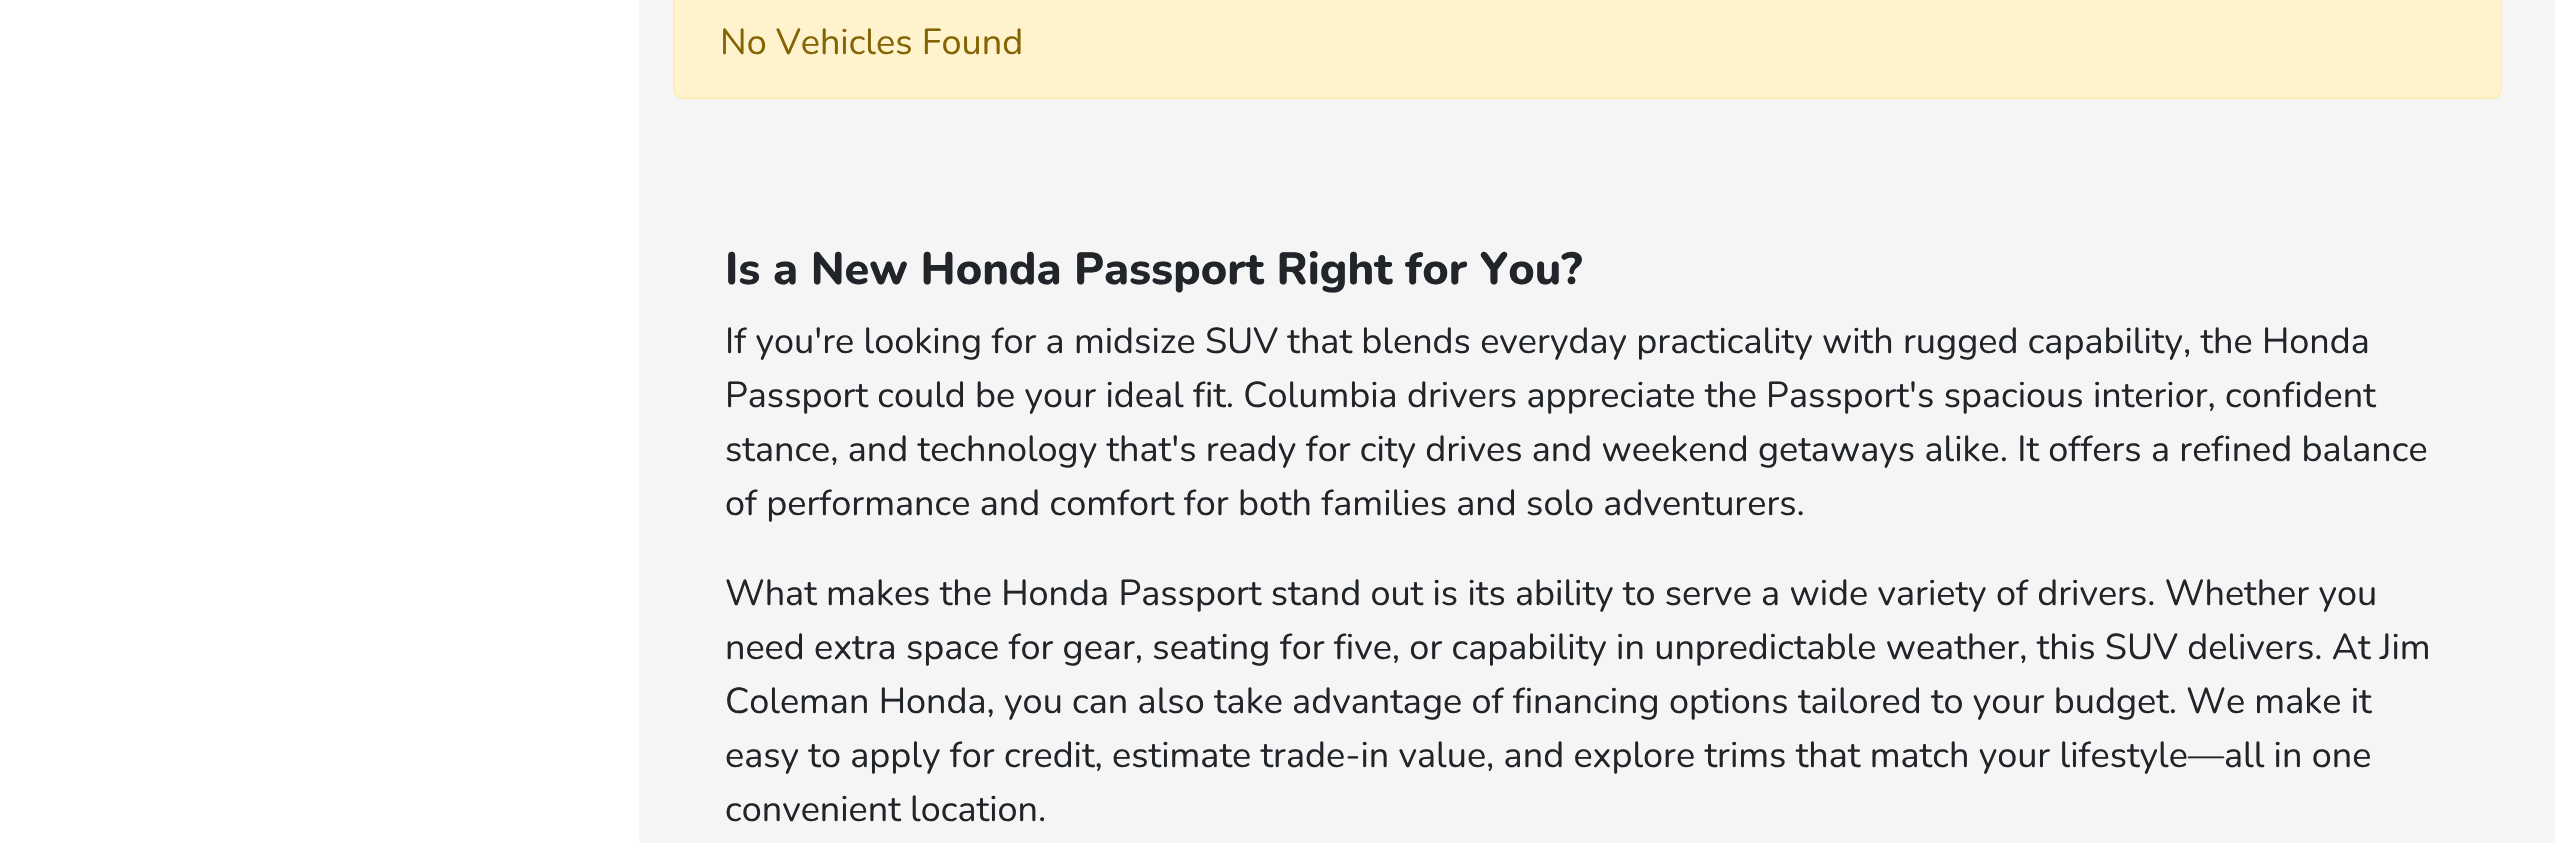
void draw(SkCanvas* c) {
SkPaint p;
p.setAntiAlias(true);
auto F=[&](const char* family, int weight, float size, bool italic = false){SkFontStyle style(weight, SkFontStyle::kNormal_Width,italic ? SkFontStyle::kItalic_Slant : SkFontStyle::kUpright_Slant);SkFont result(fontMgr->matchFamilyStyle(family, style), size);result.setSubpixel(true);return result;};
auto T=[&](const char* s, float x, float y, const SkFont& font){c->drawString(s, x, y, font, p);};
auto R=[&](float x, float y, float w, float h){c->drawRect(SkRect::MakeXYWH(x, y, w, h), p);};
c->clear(0xfff5f5f5);
p.setColor(0xffffffff);
R(0,0,639,843);
p.setColor(0xfffff3cd);
c->drawRoundRect(SkRect::MakeXYWH(674,-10,1827,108),8,8,p);
p.setStroke(true);
p.setStrokeWidth(2);
p.setColor(0xffffeeba);
c->drawRoundRect(SkRect::MakeXYWH(674,-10,1827,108),8,8,p);
auto f1 = F("Nunito",400,36);
p.setStroke(false);
p.setColor(0xff856404);
T("No Vehicles Found",720,54,f1);
auto f2 = F("Nunito",800,45);
p.setColor(0xff212529);
T("Is a New Honda Passport Right for You?",725,284,f2);
T("If you're looking for a midsize SUV that blends everyday practicality with rugged capability, the Honda",725,353,f1);
T("Passport could be your ideal fit. Columbia drivers appreciate the Passport's spacious interior, confident",725,407,f1);
T("stance, and technology that's ready for city drives and weekend getaways alike. It offers a refined balance",725,461,f1);
T("of performance and comfort for both families and solo adventurers.",725,515,f1);
T("What makes the Honda Passport stand out is its ability to serve a wide variety of drivers. Whether you",725,605,f1);
T("need extra space for gear, seating for five, or capability in unpredictable weather, this SUV delivers. At Jim",725,659,f1);
T("Coleman Honda, you can also take advantage of financing options tailored to your budget. We make it",725,713,f1);
T("easy to apply for credit, estimate trade-in value, and explore trims that match your lifestyle—all in one",725,767,f1);
T("convenient location.",725,821,f1);
}
